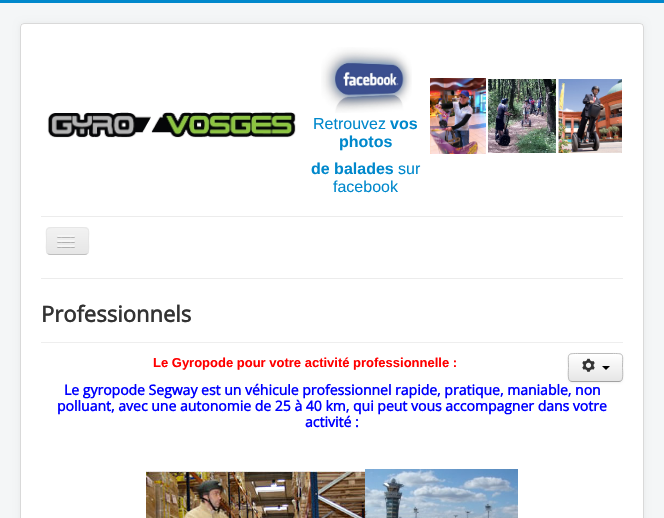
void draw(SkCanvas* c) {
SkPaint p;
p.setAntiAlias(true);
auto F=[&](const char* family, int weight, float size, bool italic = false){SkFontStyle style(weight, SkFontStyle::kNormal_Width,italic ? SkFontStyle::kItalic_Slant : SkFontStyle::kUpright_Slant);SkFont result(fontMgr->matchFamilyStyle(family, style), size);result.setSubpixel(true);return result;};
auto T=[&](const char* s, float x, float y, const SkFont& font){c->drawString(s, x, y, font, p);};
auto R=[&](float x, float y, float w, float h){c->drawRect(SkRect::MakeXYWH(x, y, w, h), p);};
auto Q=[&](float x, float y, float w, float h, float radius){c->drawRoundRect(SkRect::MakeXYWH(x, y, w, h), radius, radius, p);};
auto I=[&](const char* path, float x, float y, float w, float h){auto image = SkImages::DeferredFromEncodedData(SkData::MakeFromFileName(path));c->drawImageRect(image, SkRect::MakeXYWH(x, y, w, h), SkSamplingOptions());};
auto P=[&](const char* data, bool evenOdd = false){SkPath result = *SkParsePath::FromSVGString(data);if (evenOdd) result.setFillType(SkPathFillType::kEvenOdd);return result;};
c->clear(0xfff4f6f7);
p.setColor(0xff0088cc);
R(0,0,664,3);
p.setColor(0x0d000000);
p.setMaskFilter(SkMaskFilter::MakeBlur(kNormal_SkBlurStyle, 3));
c->drawRoundRect(SkRect::MakeXYWH(20,23,624,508),4,4,p);
p.setMaskFilter(nullptr);
p.setColor(0xffffffff);
Q(20,23,624,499,4);
p.setStroke(true);
p.setStrokeWidth(1);
p.setColor(0x26000000);
c->drawRoundRect(SkRect::MakeXYWH(20.5,23.5,623,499),3.5,3.5,p);
I("1.png",47,112,249,26);
I("2.png",321,47,91,66);
auto f1 = F("Liberation Sans",400,16);
p.setStroke(false);
p.setColor(0xff0088cc);
T("Retrouvez",313,129,f1);
auto f2 = F("Liberation Sans",700,16);
T("vos",390,129,f2);
T("photos",339,147,f2);
T("de balades",311,174,f2);
T("sur",398,174,f1);
T("facebook",333,192,f1);
I("3.png",430,78,56,76);
I("4.png",488,79,68,74);
I("5.png",558,79,64,74);
p.setColor(0xffececec);
R(41,216,582,1);
R(41,278,582,1);
p.setColor(0xffededed);
Q(46,227,43,28,4);
c->save();
c->clipPath(P("M50 227h35c2 0 4 2 4 4v20c0 2-2 4-4 4h-35c-2 0-4-2-4-4v-20c0-2 2-4 4-4z"),true);
{
const SkColor colors[] = {0xfff2f2f2,0xffe6e6e6};
const float stops[] = {0,1};
const SkPoint ends[] = {{68,228}, {68,254}};
p.setShader(SkGradientShader::MakeLinear(ends, colors, stops, 2, SkTileMode::kClamp));
p.setAlpha(255);
}
R(46,228,43,26);
c->restore();
p.setStroke(true);
p.setShader(nullptr);
p.setColor(0xffbfbfbf);
c->drawPath(P("M87.5 253.5c-.5 .5-1.5 1-2.5 1h-35c-1 0-2-.5-2.5-1"),p);
p.setColor(0xffe6e6e6);
c->drawPath(P("M47.5 253.5c-2-2.5-1-10-1-12.5c0-12-2.5-13.5 9.5-13.5h23c12 0 9.5 1.5 9.5 13.5c0 2.5 1 10-1 12.5"),p);
p.setStroke(false);
p.setColor(0xffb3b3b3);
c->drawPath(P("M57 236.5c-1 2 3.5 1.5 3.5 1.5h11c0 0 4.5 .5 3.5-1.5c-1 1-7.5 .5-9 .5c-1.5 0-8 .5-9-.5z"),p);
p.setColor(0xfff5f5f5);
Q(57,235,18,2,1);
p.setColor(0xffb0b0b0);
c->drawPath(P("M57 241.5c-1 2 3.5 1.5 3.5 1.5h11c0 0 4.5 .5 3.5-1.5c-1 1-7.5 .5-9 .5c-1.5 0-8 .5-9-.5z"),p);
p.setColor(0xfff5f5f5);
Q(57,240,18,2,1);
p.setColor(0xffafafaf);
c->drawPath(P("M57 246.5c-1 2 3.5 1.5 3.5 1.5h11c0 0 4.5 .5 3.5-1.5c-1 1-7.5 .5-9 .5c-1.5 0-8 .5-9-.5z"),p);
p.setColor(0xfff5f5f5);
Q(57,245,18,2,1);
p.setColor(0xffeeeeee);
R(41,342,582,1);
auto f3 = F("Open Sans",700,22);
p.setColor(0xff333333);
T("Professionnels",41,322,f3);
p.setColor(0x0d000000);
p.setMaskFilter(SkMaskFilter::MakeBlur(kNormal_SkBlurStyle, 1));
c->drawRoundRect(SkRect::MakeXYWH(568,354,55,29),4,4,p);
p.setMaskFilter(nullptr);
p.setColor(0xfff5f5f5);
Q(568,353,55,29,4);
c->save();
c->clipPath(P("M572 353h47c2 0 4 2 4 4v21c0 2-2 4-4 4h-47c-2 0-4-2-4-4v-21c0-2 2-4 4-4z"),true);
{
const SkColor colors[] = {0xffffffff,0xffe6e6e6};
const float stops[] = {0,1};
const SkPoint ends[] = {{596,354}, {596,381}};
p.setShader(SkGradientShader::MakeLinear(ends, colors, stops, 2, SkTileMode::kClamp));
p.setAlpha(255);
}
R(568,354,55,27);
c->restore();
p.setShader(nullptr);
p.setColor(0xffffffff);
c->drawPath(P("M572 355h47c2 0 3 1 3 3c0-6-6-4-11-4h-31c-5 0-11-2-11 4c0-2 1-3 3-3z"),p);
p.setStroke(true);
p.setColor(0xffa2a2a2);
c->drawPath(P("M621.5 380.5c-.5 .5-1.5 1-2.5 1h-47c-1 0-2-.5-2.5-1"),p);
p.setColor(0xffbbbbbb);
c->drawPath(P("M569.5 380.5c-2-2-1-10.5-1-13c0-14.5-2.5-14 11.5-14h31c14 0 11.5-.5 11.5 14c0 2.5 1 11-1 13"),p);
I("6.png",582,358,13,14);
p.setStroke(false);
p.setColor(0xff000000);
c->drawPath(P("M602 366h8l-4 4z"),p);
auto f4 = F("Liberation Sans",700,13);
p.setColor(0xffff0000);
T("Le Gyropode pour votre activité professionnelle :",153,367,f4);
auto f5 = F("Open Sans",700,14);
p.setColor(0xff0000ff);
T("Le gyropode Segway est un véhicule professionnel rapide, pratique, maniable, non",64,395,f5);
T("polluant, avec une autonomie de 25 à 40 km, qui peut vous accompagner dans votre",57,411,f5);
T("activité :",305,427,f5);
I("7.png",146,471,219,47);
I("8.png",365,469,153,49);
}
